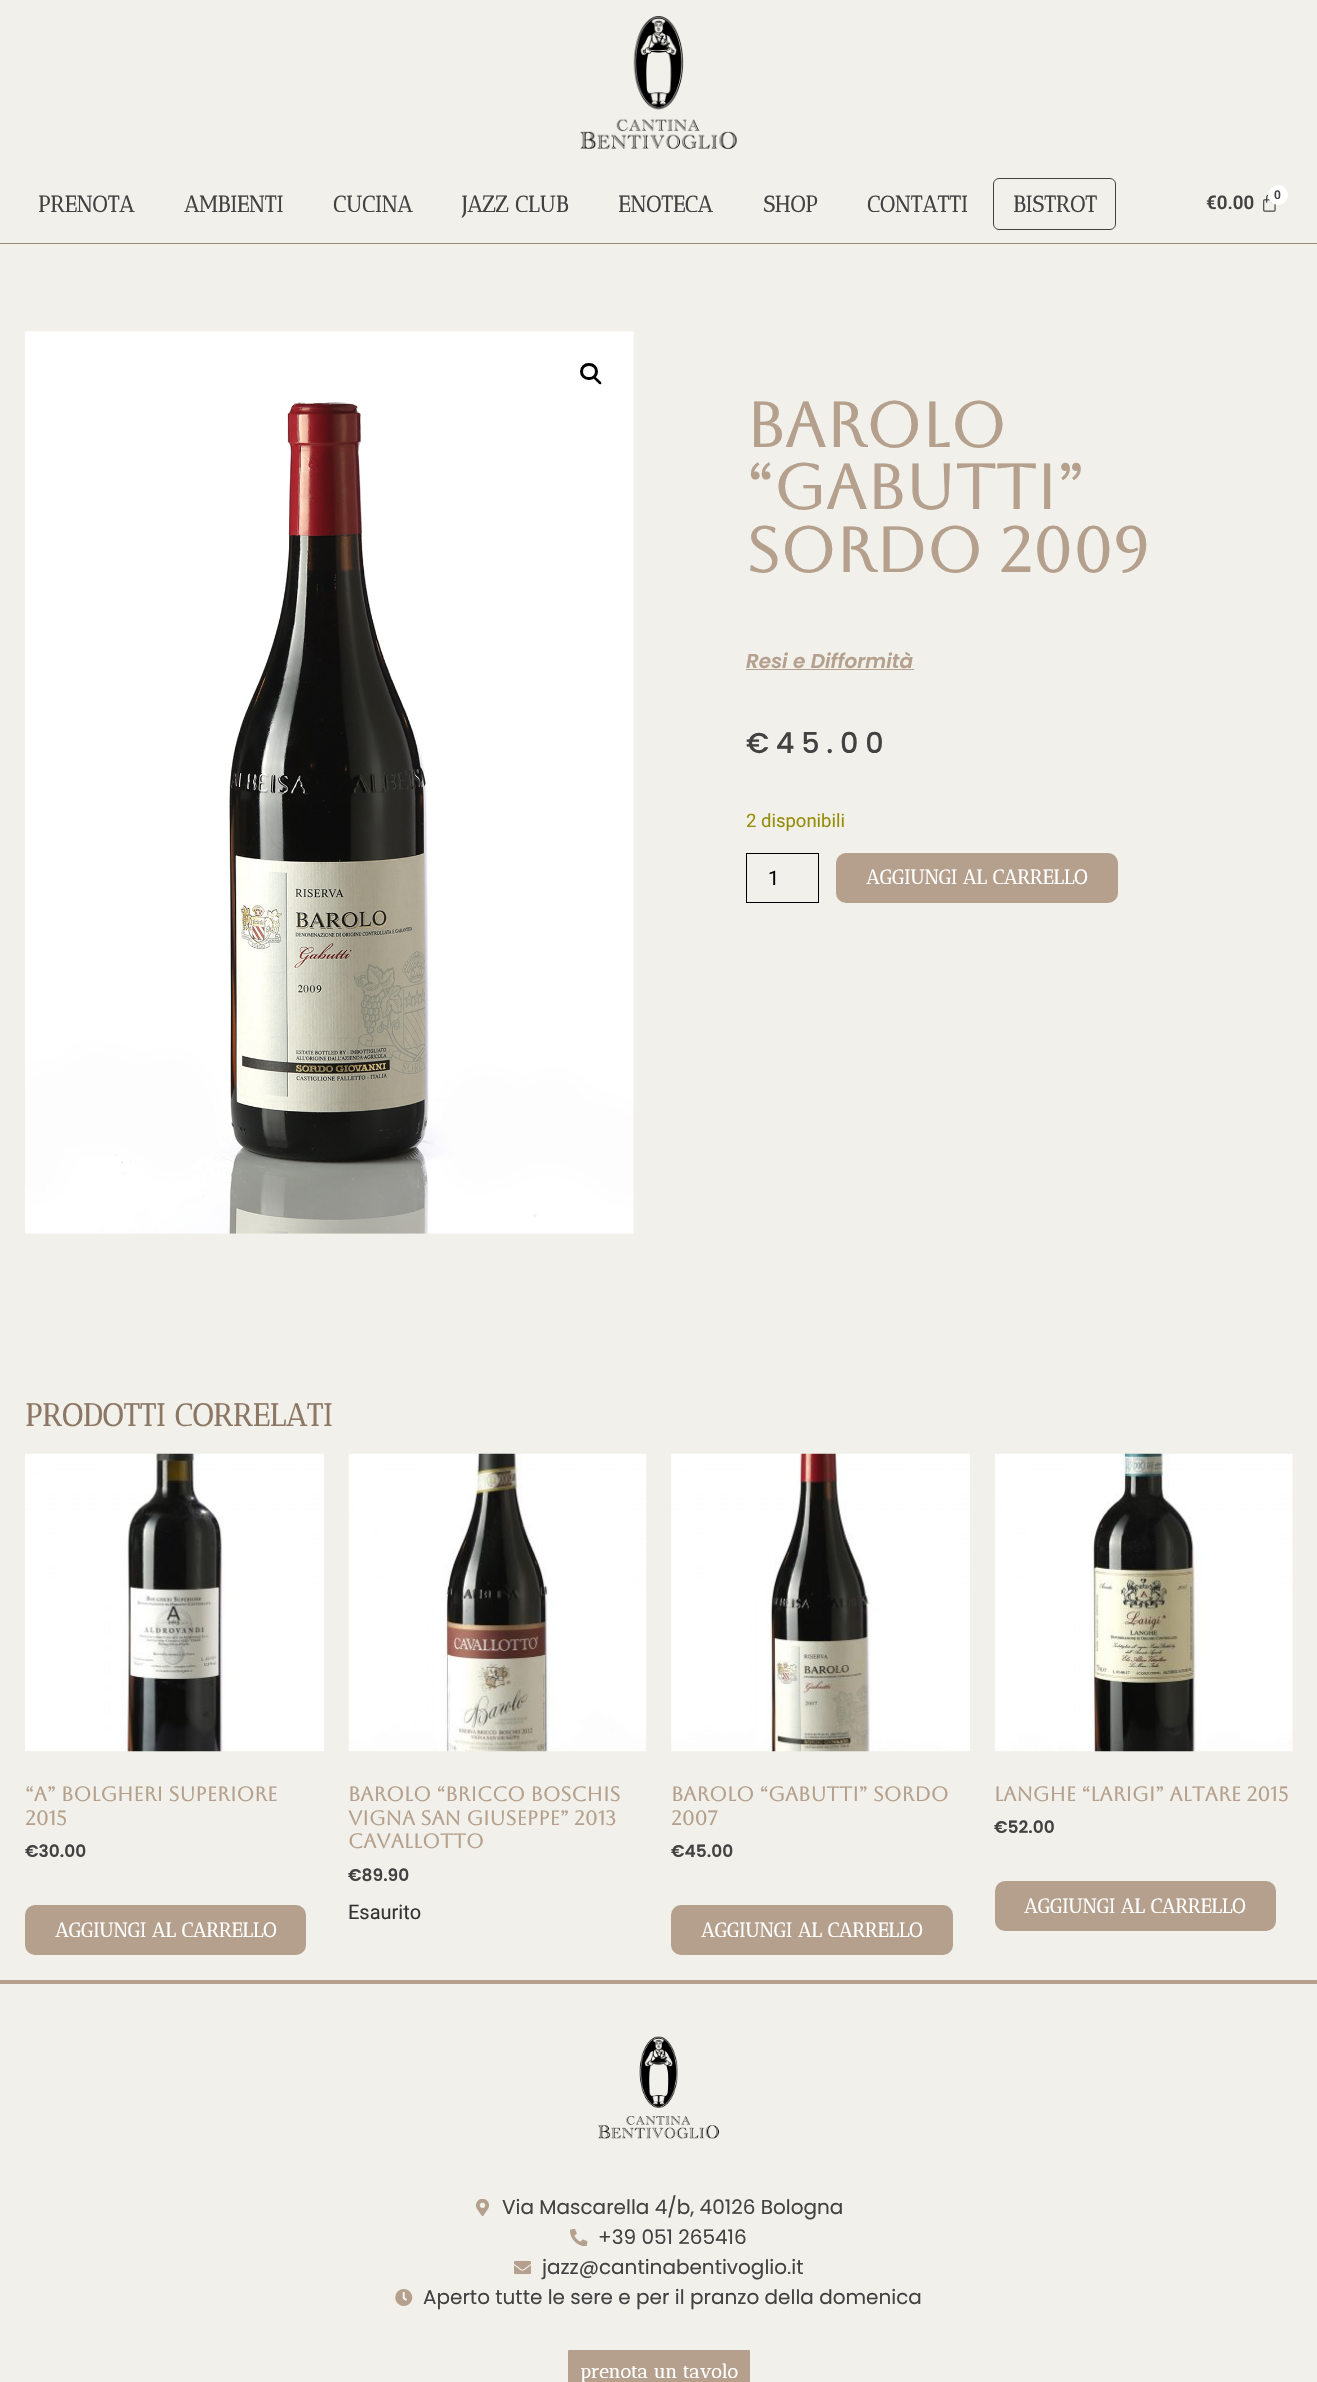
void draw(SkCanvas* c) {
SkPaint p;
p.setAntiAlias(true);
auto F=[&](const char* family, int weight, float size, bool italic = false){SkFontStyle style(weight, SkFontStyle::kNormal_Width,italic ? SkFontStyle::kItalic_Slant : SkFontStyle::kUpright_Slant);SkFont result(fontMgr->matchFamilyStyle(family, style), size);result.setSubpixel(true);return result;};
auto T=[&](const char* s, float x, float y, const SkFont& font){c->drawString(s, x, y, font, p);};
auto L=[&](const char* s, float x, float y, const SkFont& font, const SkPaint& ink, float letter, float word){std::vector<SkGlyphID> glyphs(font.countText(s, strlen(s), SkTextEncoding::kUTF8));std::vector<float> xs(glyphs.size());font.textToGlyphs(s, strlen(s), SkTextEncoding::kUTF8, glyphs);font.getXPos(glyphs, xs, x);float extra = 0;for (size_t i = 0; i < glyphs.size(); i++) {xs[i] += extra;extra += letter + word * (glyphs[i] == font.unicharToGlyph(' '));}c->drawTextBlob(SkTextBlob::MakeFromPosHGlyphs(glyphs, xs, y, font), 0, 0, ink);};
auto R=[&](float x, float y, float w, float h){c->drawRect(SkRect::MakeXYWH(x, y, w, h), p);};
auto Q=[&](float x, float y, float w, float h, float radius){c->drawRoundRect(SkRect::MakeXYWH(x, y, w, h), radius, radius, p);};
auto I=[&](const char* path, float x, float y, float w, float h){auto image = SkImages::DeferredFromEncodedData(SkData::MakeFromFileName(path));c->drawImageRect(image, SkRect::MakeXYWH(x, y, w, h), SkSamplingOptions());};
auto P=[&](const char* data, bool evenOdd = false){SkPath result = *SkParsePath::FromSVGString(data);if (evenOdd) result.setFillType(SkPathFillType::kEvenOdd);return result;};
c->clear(0xfff1f0ea);
I("1.png",580,16,157,133);
p.setColor(0xff988572);
R(0,243,1317,1);
auto f1 = F("Antic Didone",700,22.5);
p.setColor(0xff424242);
T("PRENOTA",38,212,f1);
T("AMBIENTI",184,212,f1);
T("CUCINA",333,212,f1);
T("JAZZ CLUB",462,212,f1);
T("ENOTECA",618,212,f1);
T("SHOP",763,212,f1);
T("CONTATTI",867,212,f1);
p.setStroke(true);
p.setStrokeWidth(1);
c->drawRoundRect(SkRect::MakeXYWH(993.5,178.5,122,51),5.5,5.5,p);
p.setStroke(false);
T("BISTROT",1013,212,f1);
auto f2 = F("Roboto",600,18.75);
T("€0.00",1206,209,f2);
I("2.png",1263,194,13,18);
p.setColor(0xffffffff);
c->drawCircle(1278,195,10,p);
auto f3 = F("Roboto",600,12);
p.setColor(0xff424242);
T("0",1274,199,f3);
I("3.png",25,331,609,903);
p.setStroke(true);
p.setStrokeWidth(3);
p.setColor(0xff000000);
c->drawRoundRect(SkRect::MakeXYWH(581.5,364.5,15,14),7,7,p);
p.setStroke(false);
c->drawPath(P("M594 377c1.5-1.5 3.5 2 4.5 2.5c.5 1 4 3 2.5 4.5c-1.5 1.5-3.5-2-4.5-2.5c-.5-1-4-3-2.5-4.5z"),p);
auto f4 = F("Aboreto",700,62.5);
p.setColor(0xffb4a08c);
T("BAROLO",746,447,f4);
T("“GABUTTI”",746,509,f4);
T("SORDO 2009",746,572,f4);
auto f5 = F("Poppins",600,20,true);
T("Resi e Difformità",746,668,f5);
R(746,669,168,1);
auto f6 = F("Poppins",500,28.75);
p.setColor(0xff424242);
L("€45.00",746,753,f6,p,6.75,0);
auto f7 = F("Roboto",400,18.5);
p.setColor(0xff958e09);
T("2 disponibili",746,827,f7);
p.setStroke(true);
p.setStrokeWidth(1);
p.setColor(0xff000000);
c->drawRect(SkRect::MakeXYWH(746.5,853.5,72,49),p);
auto f8 = F("Roboto",400,20);
p.setStroke(false);
T("1",768,885,f8);
p.setColor(0xffb4a08c);
Q(836,853,282,50,10);
auto f9 = F("Antic Didone",700,20);
p.setColor(0xffffffff);
T("AGGIUNGI AL CARRELLO",866,884,f9);
auto f10 = F("Antic Didone",700,31.25);
p.setColor(0xff8c7765);
T("PRODOTTI CORRELATI",25,1426,f10);
I("4.png",25,1453,299,299);
auto f11 = F("Aboreto",700,20);
p.setColor(0xffb4a08c);
T("“A” Bolgheri Superiore",25,1801,f11);
T("2015",25,1825,f11);
auto f12 = F("Poppins",600,17);
p.setColor(0xff424242);
T("€30.00",25,1857,f12);
p.setColor(0xffb4a08c);
Q(25,1905,281,50,10);
p.setColor(0xffffffff);
T("AGGIUNGI AL CARRELLO",55,1937,f9);
I("5.png",348,1453,299,299);
p.setColor(0xffb4a08c);
T("BAROLO “BRICCO BOSCHIS",348,1801,f11);
T("VIGNA SAN GIUSEPPE” 2013",348,1825,f11);
T("CAVALLOTTO",348,1848,f11);
p.setColor(0xff424242);
T("€89.90",348,1881,f12);
p.setColor(0xff333333);
T("Esaurito",348,1919,f8);
I("6.png",671,1453,299,299);
p.setColor(0xffb4a08c);
T("BAROLO “GABUTTI” SORDO",671,1801,f11);
T("2007",671,1825,f11);
p.setColor(0xff424242);
T("€45.00",671,1857,f12);
p.setColor(0xffb4a08c);
Q(671,1905,282,50,10);
p.setColor(0xffffffff);
T("AGGIUNGI AL CARRELLO",701,1937,f9);
I("7.png",995,1453,298,299);
p.setColor(0xffb4a08c);
T("LANGHE “LARIGI” ALTARE 2015",994,1801,f11);
p.setColor(0xff424242);
T("€52.00",994,1833,f12);
p.setColor(0xffb4a08c);
Q(995,1881,281,50,10);
p.setColor(0xffffffff);
T("AGGIUNGI AL CARRELLO",1024,1913,f9);
p.setColor(0xffb4a08c);
R(0,1980,1317,4);
I("8.png",598,2036,121,103);
I("9.png",476,2199,13,17);
auto f13 = F("Poppins",400,20);
p.setColor(0xff424242);
T("Via Mascarella 4/b, 40126 Bologna",502,2214,f13);
I("10.png",570,2229,18,17);
T("+39 051 265416",598,2244,f13);
I("11.png",514,2260,17,15);
T("jazz@cantinabentivoglio.it",542,2274,f13);
I("12.png",395,2289,18,17);
T("Aperto tutte le sere e per il pranzo della domenica",423,2304,f13);
p.setColor(0xffb4a08c);
Q(568,2350,182,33,1);
auto f14 = F("Antic Didone",700,18.75);
p.setColor(0xffffffff);
T("prenota un tavolo",580,2378,f14);
}
